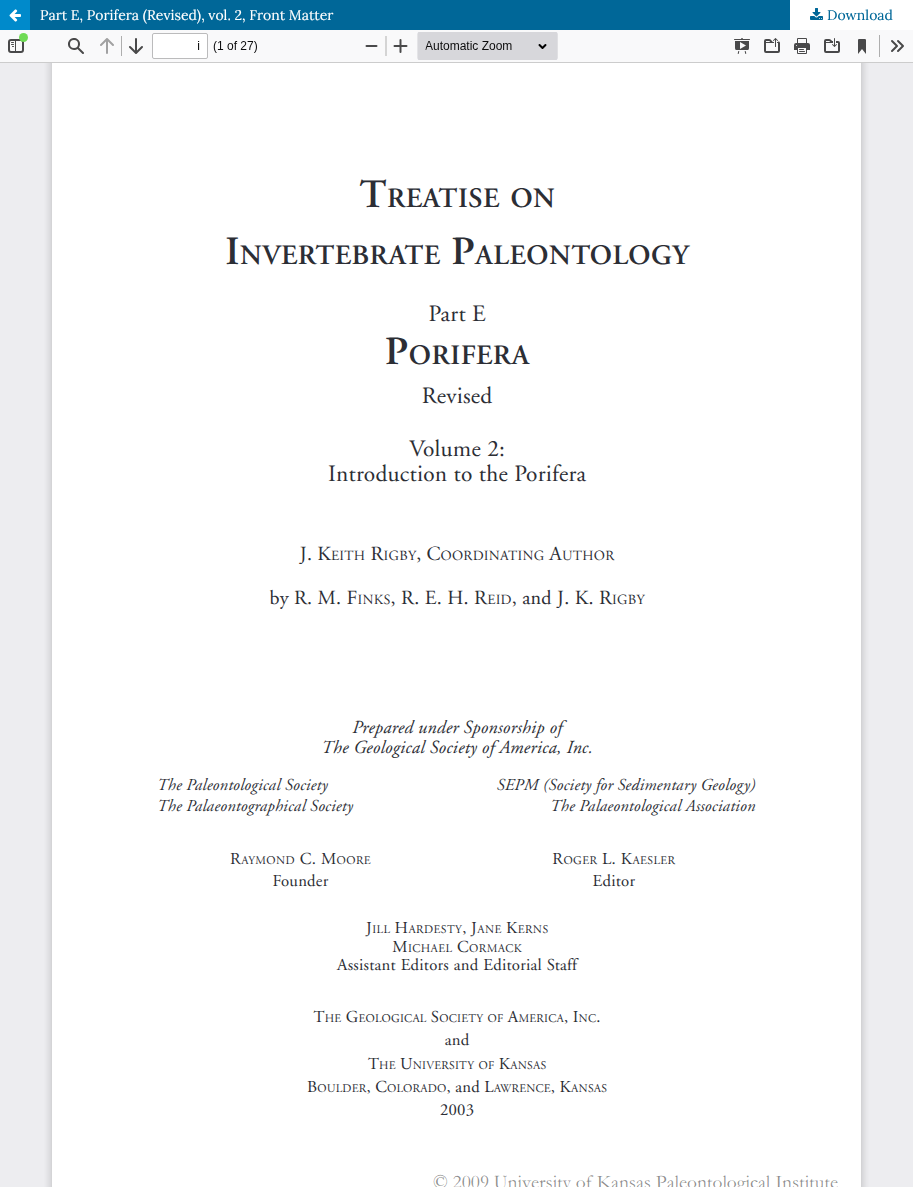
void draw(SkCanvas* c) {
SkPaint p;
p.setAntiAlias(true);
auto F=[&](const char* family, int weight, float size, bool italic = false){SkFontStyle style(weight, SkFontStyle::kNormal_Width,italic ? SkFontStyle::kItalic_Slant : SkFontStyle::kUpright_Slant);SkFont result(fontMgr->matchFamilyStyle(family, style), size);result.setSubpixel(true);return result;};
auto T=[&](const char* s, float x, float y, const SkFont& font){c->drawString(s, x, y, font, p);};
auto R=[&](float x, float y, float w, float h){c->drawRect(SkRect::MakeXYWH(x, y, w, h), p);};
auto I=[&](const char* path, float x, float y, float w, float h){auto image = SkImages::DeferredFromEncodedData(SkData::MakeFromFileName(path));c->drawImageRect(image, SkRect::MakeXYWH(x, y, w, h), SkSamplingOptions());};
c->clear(0xffffffff);
p.setColor(0xff006798);
R(30,0,760,30);
p.setColor(0xff008acb);
R(0,0,30,30);
I("1.png",9,9,12,13);
auto f1 = F("Lora",400,14);
p.setColor(0xffffffff);
T("Part E, Porifera (Revised), vol. 2, Front Matter",40,20,f1);
I("2.png",810,8,13,12);
p.setColor(0xff006798);
T("Download",827,20,f1);
I("3.png",0,30,913,1157);
}
